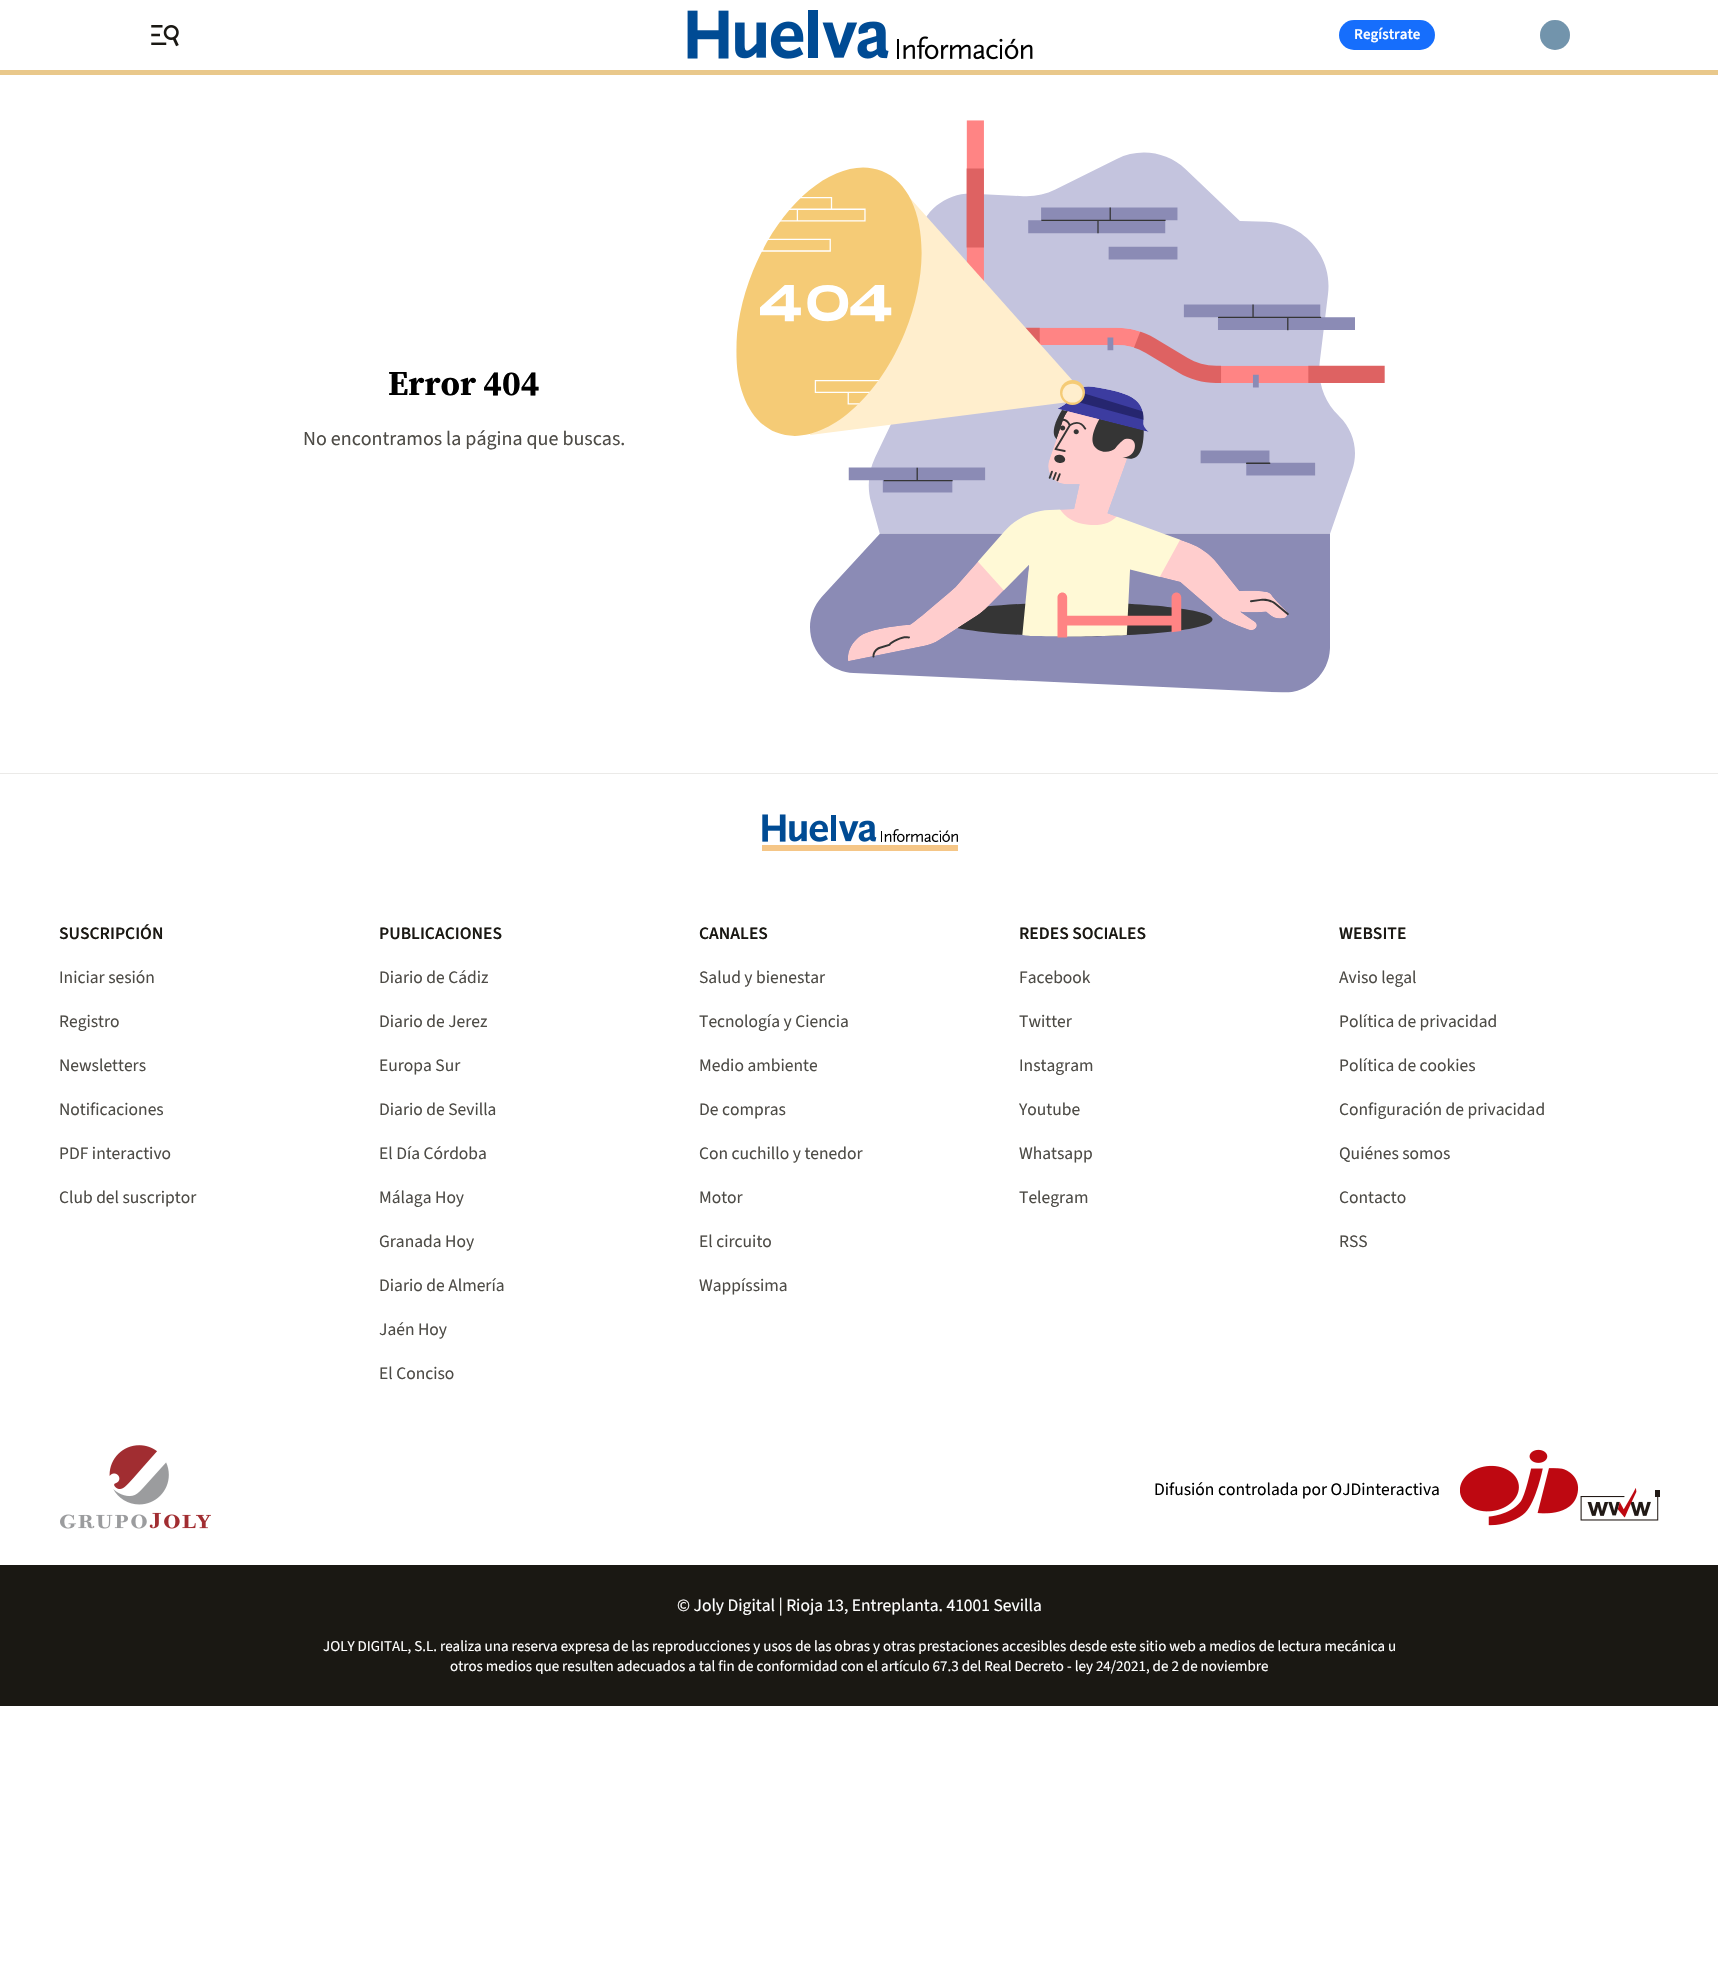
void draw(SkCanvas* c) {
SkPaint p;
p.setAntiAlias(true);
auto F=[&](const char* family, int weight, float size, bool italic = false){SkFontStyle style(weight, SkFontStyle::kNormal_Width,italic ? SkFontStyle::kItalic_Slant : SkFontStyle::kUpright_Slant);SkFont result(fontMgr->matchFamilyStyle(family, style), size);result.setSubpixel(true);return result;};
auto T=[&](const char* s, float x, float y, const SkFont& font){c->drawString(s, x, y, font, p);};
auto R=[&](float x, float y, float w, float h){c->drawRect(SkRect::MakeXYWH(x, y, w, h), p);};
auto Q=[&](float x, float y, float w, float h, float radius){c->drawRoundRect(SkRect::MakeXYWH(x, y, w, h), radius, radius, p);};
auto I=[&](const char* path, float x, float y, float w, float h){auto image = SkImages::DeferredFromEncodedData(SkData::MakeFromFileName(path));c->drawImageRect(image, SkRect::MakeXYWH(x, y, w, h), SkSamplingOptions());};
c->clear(0xffffffff);
I("1.png",151,25,28,22);
I("2.png",687,10,346,50);
p.setColor(0xff166efc);
Q(1339,20,96,30,15);
auto f1 = F("Source Sans 3",600,15);
p.setColor(0xffffffff);
T("Regístrate",1354,39,f1);
p.setColor(0xffa7bccb);
c->drawCircle(1555,35,15,p);
p.setColor(0x6624577c);
c->drawCircle(1555,35,15,p);
p.setColor(0xffe9c88b);
R(0,70,1718,5);
auto f2 = F("Source Serif 4",700,35);
p.setColor(0xff000000);
T("Error 404",388,395,f2);
auto f3 = F("Source Sans 3",400,20);
p.setColor(0xff4d4b46);
T("No encontramos la página que buscas.",303,445,f3);
I("3.png",736,120,649,573);
p.setColor(0xffebeae8);
R(0,773,1718,1);
I("4.png",762,814,196,37);
auto f4 = F("Source Sans 3",600,17.5);
p.setColor(0xff1a1813);
T("SUSCRIPCIÓN",59,939,f4);
auto f5 = F("Source Sans 3",400,17.5);
p.setColor(0xff4d4b46);
T("Iniciar sesión",59,983,f5);
T("Registro",59,1027,f5);
T("Newsletters",59,1071,f5);
T("Notificaciones",59,1115,f5);
T("PDF interactivo",59,1159,f5);
T("Club del suscriptor",59,1203,f5);
p.setColor(0xff1a1813);
T("PUBLICACIONES",379,939,f4);
p.setColor(0xff4d4b46);
T("Diario de Cádiz",379,983,f5);
T("Diario de Jerez",379,1027,f5);
T("Europa Sur",379,1071,f5);
T("Diario de Sevilla",379,1115,f5);
T("El Día Córdoba",379,1159,f5);
T("Málaga Hoy",379,1203,f5);
T("Granada Hoy",379,1247,f5);
T("Diario de Almería",379,1291,f5);
T("Jaén Hoy",379,1335,f5);
T("El Conciso",379,1379,f5);
p.setColor(0xff1a1813);
T("CANALES",699,939,f4);
p.setColor(0xff4d4b46);
T("Salud y bienestar",699,983,f5);
T("Tecnología y Ciencia",699,1027,f5);
T("Medio ambiente",699,1071,f5);
T("De compras",699,1115,f5);
T("Con cuchillo y tenedor",699,1159,f5);
T("Motor",699,1203,f5);
T("El circuito",699,1247,f5);
T("Wappíssima",699,1291,f5);
p.setColor(0xff1a1813);
T("REDES SOCIALES",1019,939,f4);
p.setColor(0xff4d4b46);
T("Facebook",1019,983,f5);
T("Twitter",1019,1027,f5);
T("Instagram",1019,1071,f5);
T("Youtube",1019,1115,f5);
T("Whatsapp",1019,1159,f5);
T("Telegram",1019,1203,f5);
p.setColor(0xff1a1813);
T("WEBSITE",1339,939,f4);
p.setColor(0xff4d4b46);
T("Aviso legal",1339,983,f5);
T("Política de privacidad",1339,1027,f5);
T("Política de cookies",1339,1071,f5);
T("Configuración de privacidad",1339,1115,f5);
T("Quiénes somos",1339,1159,f5);
T("Contacto",1339,1203,f5);
T("RSS",1339,1247,f5);
I("5.png",60,1445,151,84);
p.setColor(0xff000000);
T("Difusión controlada por OJDinteractiva",1154,1495,f5);
I("6.png",1460,1449,200,77);
p.setColor(0xff1a1813);
R(0,1565,1718,141);
p.setColor(0xffffffff);
T("© Joly Digital | Rioja 13, Entreplanta. 41001 Sevilla",677,1611,f5);
auto f6 = F("Source Sans 3",400,15);
T("JOLY DIGITAL, S.L. realiza una reserva expresa de las reproducciones y usos de las obras y otras prestaciones accesibles desde este sitio web a medios de lectura mecánica u",323,1651,f6);
T("otros medios que resulten adecuados a tal fin de conformidad con el artículo 67.3 del Real Decreto - ley 24/2021, de 2 de noviembre",450,1671,f6);
}
